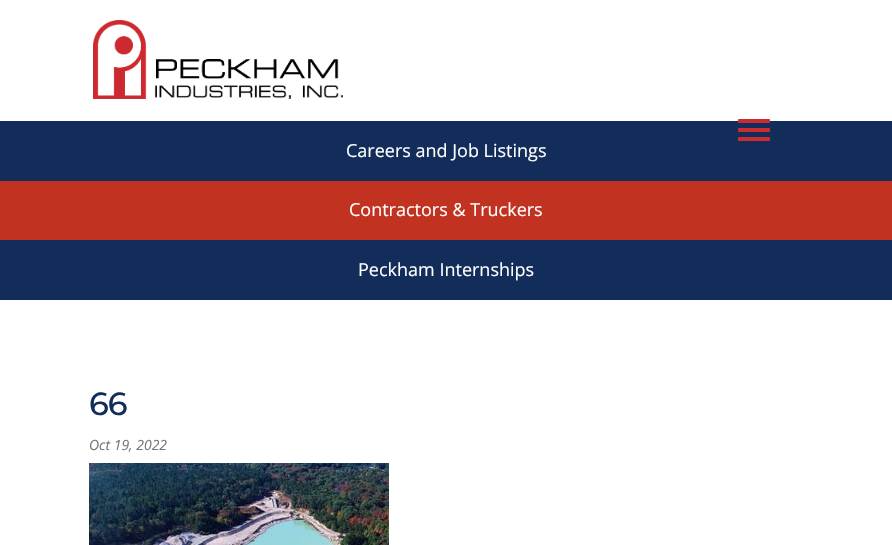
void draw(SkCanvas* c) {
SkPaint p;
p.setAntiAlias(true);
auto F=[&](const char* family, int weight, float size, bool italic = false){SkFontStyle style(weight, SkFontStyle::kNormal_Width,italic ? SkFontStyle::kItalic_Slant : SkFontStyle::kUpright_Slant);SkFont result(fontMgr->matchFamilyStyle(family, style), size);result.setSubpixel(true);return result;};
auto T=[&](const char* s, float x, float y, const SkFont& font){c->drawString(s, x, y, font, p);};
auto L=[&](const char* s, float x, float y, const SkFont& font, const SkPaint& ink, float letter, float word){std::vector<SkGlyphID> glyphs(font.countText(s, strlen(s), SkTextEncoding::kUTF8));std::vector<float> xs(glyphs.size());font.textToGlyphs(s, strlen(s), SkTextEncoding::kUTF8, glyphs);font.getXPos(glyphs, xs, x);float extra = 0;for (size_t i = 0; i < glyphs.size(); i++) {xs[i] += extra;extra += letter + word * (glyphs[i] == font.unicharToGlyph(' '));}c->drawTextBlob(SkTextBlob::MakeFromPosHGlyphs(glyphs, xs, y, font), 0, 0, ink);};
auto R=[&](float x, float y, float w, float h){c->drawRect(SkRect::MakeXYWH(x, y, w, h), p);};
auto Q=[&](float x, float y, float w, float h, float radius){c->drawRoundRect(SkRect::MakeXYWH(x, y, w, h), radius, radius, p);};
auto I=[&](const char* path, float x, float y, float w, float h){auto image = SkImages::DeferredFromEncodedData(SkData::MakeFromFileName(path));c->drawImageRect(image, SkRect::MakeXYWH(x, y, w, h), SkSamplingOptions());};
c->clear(0xffffffff);
I("1.png",93,20,250,79);
p.setColor(0xff132d5a);
R(0,121,892,60);
p.setColor(0xffcb2c30);
Q(738,119,32,4,1);
Q(738,128,32,4,1);
Q(738,137,32,4,1);
auto f1 = F("Open Sans",400,18);
p.setColor(0xffffffff);
T("Careers and Job Listings",346,157,f1);
p.setColor(0xffc23220);
R(0,181,892,59);
p.setColor(0xffffffff);
T("Contractors & Truckers",349,216,f1);
p.setColor(0xff132d5a);
R(0,240,892,60);
p.setColor(0xffffffff);
T("Peckham Internships",358,276,f1);
auto f2 = F("Montserrat",500,32);
p.setColor(0xff122d5a);
L("66",89,415,f2,p,-1,0);
auto f3 = F("Open Sans",400,14,true);
p.setColor(0xff777777);
T("Oct 19, 2022",89,450,f3);
I("2.png",89,463,300,82);
}
